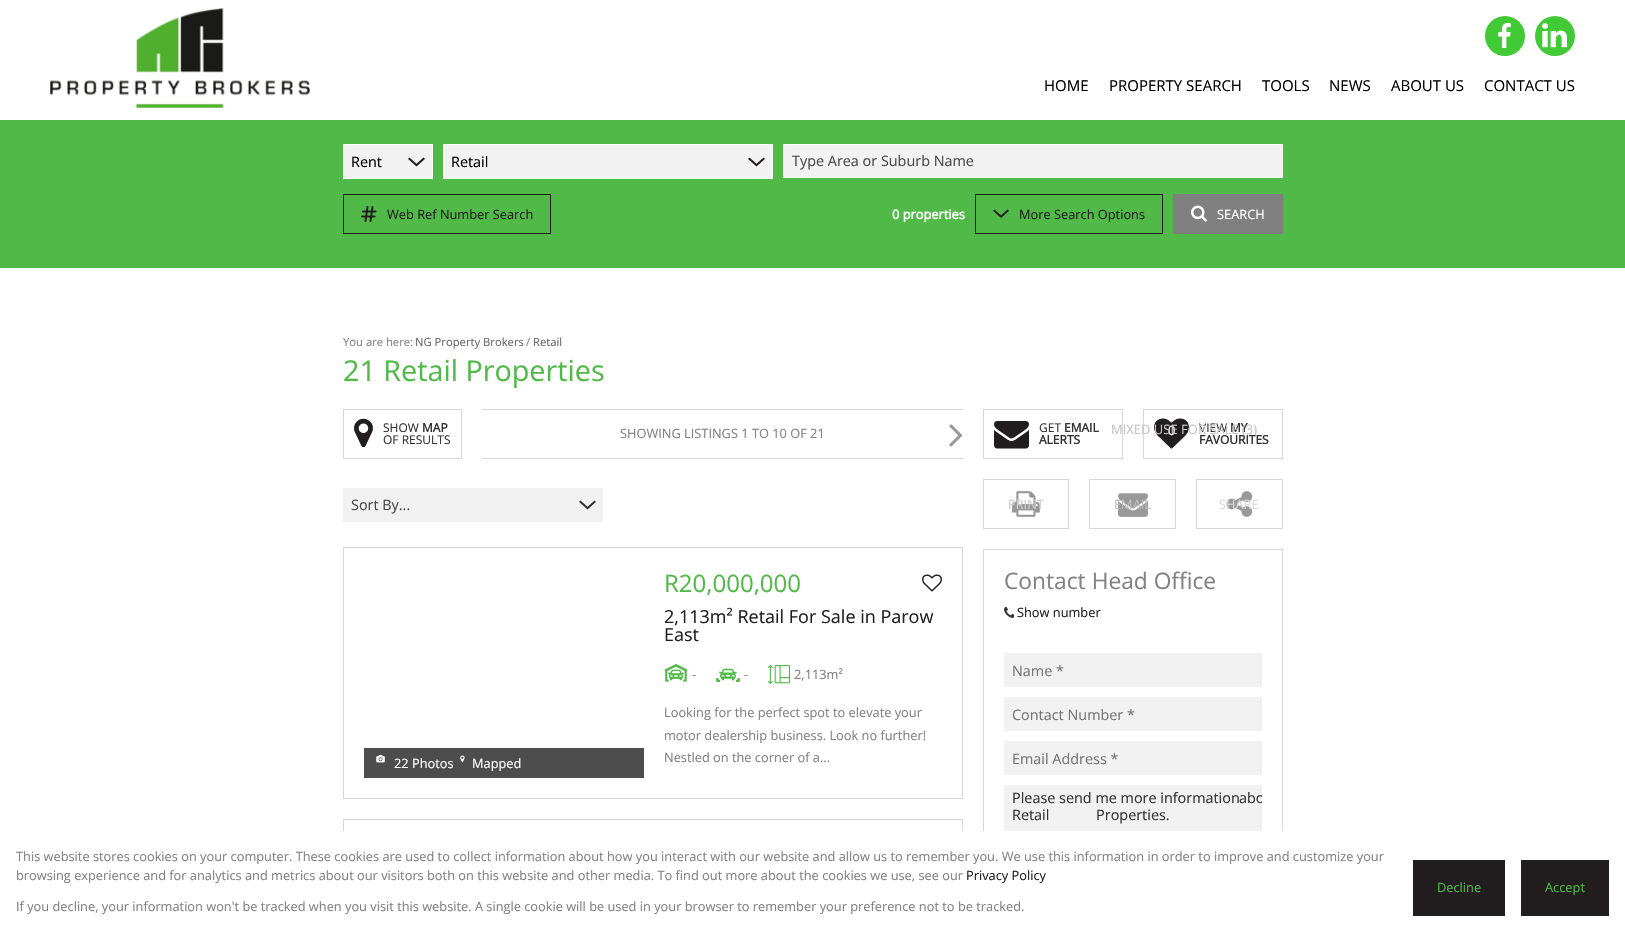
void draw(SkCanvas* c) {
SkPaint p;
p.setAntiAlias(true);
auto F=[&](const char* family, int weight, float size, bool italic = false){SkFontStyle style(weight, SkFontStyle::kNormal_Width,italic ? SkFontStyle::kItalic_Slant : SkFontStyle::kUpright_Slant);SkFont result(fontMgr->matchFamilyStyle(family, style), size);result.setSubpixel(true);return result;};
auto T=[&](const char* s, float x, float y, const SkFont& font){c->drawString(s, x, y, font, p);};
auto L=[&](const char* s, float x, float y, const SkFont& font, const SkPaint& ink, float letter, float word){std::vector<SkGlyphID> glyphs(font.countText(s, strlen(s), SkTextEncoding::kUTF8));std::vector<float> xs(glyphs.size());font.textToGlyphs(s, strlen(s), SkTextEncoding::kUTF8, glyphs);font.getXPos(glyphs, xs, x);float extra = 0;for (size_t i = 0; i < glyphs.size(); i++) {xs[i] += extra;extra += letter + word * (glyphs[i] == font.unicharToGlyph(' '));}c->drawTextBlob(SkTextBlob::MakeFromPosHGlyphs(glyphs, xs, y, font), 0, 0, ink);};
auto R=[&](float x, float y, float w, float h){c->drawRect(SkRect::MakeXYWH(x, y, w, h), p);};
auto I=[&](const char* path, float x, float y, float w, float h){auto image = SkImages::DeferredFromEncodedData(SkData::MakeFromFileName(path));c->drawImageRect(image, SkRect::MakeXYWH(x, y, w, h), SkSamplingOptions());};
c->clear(0xffffffff);
p.setColor(0xff51b948);
R(0,120,1625,148);
p.setColor(0xfff2f2f2);
c->drawRect(SkRect::MakeXYWH(343.5,144.5,89,34),p);
p.setStroke(true);
p.setStrokeWidth(1);
p.setColor(0xffffffff);
c->drawRect(SkRect::MakeXYWH(343.5,144.5,89,34),p);
auto f1 = F("Open Sans",400,14.4);
p.setStroke(false);
p.setColor(0xff000000);
T("Rent",351,167,f1);
I("1.png",408,157,17,10);
p.setColor(0xfff2f2f2);
c->drawRect(SkRect::MakeXYWH(443.5,144.5,329,34),p);
p.setStroke(true);
p.setColor(0xffffffff);
c->drawRect(SkRect::MakeXYWH(443.5,144.5,329,34),p);
p.setStroke(false);
p.setColor(0xff000000);
T("Retail",451,167,f1);
I("1.png",748,157,17,10);
p.setColor(0xfff2f2f2);
c->drawRect(SkRect::MakeXYWH(783.5,144.5,499,33),p);
p.setStroke(true);
p.setColor(0xffffffff);
c->drawRect(SkRect::MakeXYWH(783.5,144.5,499,33),p);
p.setStroke(false);
p.setColor(0xff494949);
T("Type Area or Suburb Name",792,166,f1);
p.setStroke(true);
p.setColor(0xff221e1f);
c->drawRect(SkRect::MakeXYWH(343.5,194.5,207,39),p);
I("2.png",361,206,16,16);
auto f2 = F("Open Sans",400,12.8);
p.setStroke(false);
T("Web Ref Number Search",387,219,f2);
auto f3 = F("Open Sans",700,12.8);
p.setColor(0xffffffff);
T("0 properties",892,219,f3);
p.setStroke(true);
p.setColor(0xff221e1f);
c->drawRect(SkRect::MakeXYWH(975.5,194.5,187,39),p);
I("3.png",993,209,16,9);
p.setStroke(false);
T("More Search Options",1019,219,f2);
p.setColor(0xff808080);
R(1173,194,110,40);
I("4.png",1191,205,16,17);
p.setColor(0xffffffff);
T("SEARCH",1217,219,f2);
I("5.png",50,8,260,100);
p.setColor(0xff42c936);
c->drawCircle(1505,36,20,p);
I("6.png",1498,23,13,25);
c->drawCircle(1555,36,20,p);
I("7.png",1542,23,25,25);
auto f4 = F("Open Sans",400,15);
p.setColor(0xff000000);
T("HOME",1044,91,f4);
T("PROPERTY SEARCH",1109,91,f4);
p.setStroke(true);
p.setColor(0xffd6d6d6);
c->drawRect(SkRect::MakeXYWH(983.5,409.5,139,49),p);
c->drawRect(SkRect::MakeXYWH(1143.5,409.5,139,49),p);
I("11.png",1154,418,35,31);
auto f5 = F("Open Sans",400,13);
p.setStroke(false);
p.setColor(0xffffffff);
T("0",1168,435,f5);
auto f6 = F("Open Sans",400,12);
p.setColor(0xff333333);
T("VIEW",1199,432,f6);
auto f7 = F("Open Sans",700,12);
T("MY",1230,432,f7);
p.setColor(0xffc5c4c4);
T("MIXED USE FOR SALE (3)",1111,434,f5);
p.setColor(0xff000000);
T("TOOLS",1262,91,f4);
T("NEWS",1329,91,f4);
T("ABOUT US",1391,91,f4);
T("CONTACT US",1484,91,f4);
auto f8 = F("Open Sans",400,11.25);
p.setColor(0xff828282);
T("You are here:",343,346,f8);
p.setColor(0xff666666);
T("NG Property Brokers",415,346,f8);
p.setColor(0xff828282);
T("/",526,346,f8);
p.setColor(0xff666666);
T("Retail",533,346,f8);
auto f9 = F("Open Sans",400,28.75);
p.setColor(0xff51b948);
T("21 Retail Properties",343,381,f9);
p.setStroke(true);
p.setColor(0xffd6d6d6);
c->drawRect(SkRect::MakeXYWH(343.5,409.5,118,49),p);
I("8.png",354,418,19,30);
p.setStroke(false);
p.setColor(0xff333333);
T("SHOW",383,432,f6);
T("MAP",422,432,f7);
T("OF RESULTS",383,444,f6);
p.setColor(0xffd6d6d6);
R(482,409,481,1);
R(482,458,481,1);
p.setColor(0xff828282);
T("SHOWING LISTINGS 1 TO 10 OF 21",620,438,f2);
I("9.png",949,424,14,23);
I("10.png",994,421,35,28);
p.setColor(0xff333333);
T("GET",1039,432,f6);
T("EMAIL",1064,432,f7);
T("ALERTS",1039,444,f7);
T("FAVOURITES",1199,444,f7);
p.setColor(0xfff1f1f1);
R(343,488,260,34);
p.setColor(0xff494949);
T("Sort By...",351,510,f1);
I("12.png",579,500,17,10);
p.setStroke(true);
p.setColor(0xffd6d6d6);
c->drawRect(SkRect::MakeXYWH(343.5,547.5,619,251),p);
auto f10 = F("Open Sans",400,24);
p.setStroke(false);
p.setColor(0xff51b948);
T("R20,000,000",664,592,f10);
I("13.png",922,574,20,18);
auto f11 = F("Open Sans",400,18);
p.setColor(0xff221e1f);
T("2,113m² Retail For Sale in Parow",664,623,f11);
T("East",664,641,f11);
I("14.png",664,664,24,18);
p.setColor(0xff828282);
T("-",692,679,f2);
I("15.png",716,668,24,14);
T("-",744,679,f2);
I("16.png",768,665,22,19);
T("2,113m²",794,679,f2);
T("Looking for the perfect spot to elevate your",664,717,f2);
T("motor dealership business. Look no further!",664,740,f2);
T("Nestled on the corner of a...",664,762,f2);
p.setColor(0xff4d4d4d);
R(364,748,280,30);
I("17.png",376,755,9,8);
p.setColor(0xffffffff);
T("22 Photos",394,768,f2);
I("18.png",460,755,5,8);
T("Mapped",472,768,f2);
p.setStroke(true);
p.setColor(0xffd6d6d6);
c->drawRect(SkRect::MakeXYWH(343.5,819.5,619,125),p);
c->drawRect(SkRect::MakeXYWH(983.5,479.5,85,49),p);
I("19.png",1012,491,28,26);
p.setStroke(false);
p.setColor(0xffcecece);
T("PRINT",1008,509,f2);
p.setStroke(true);
p.setColor(0xffd6d6d6);
c->drawRect(SkRect::MakeXYWH(1089.5,479.5,86,49),p);
I("20.png",1118,493,30,24);
p.setStroke(false);
p.setColor(0xffbdbdbd);
T("EMAIL",1114,509,f2);
p.setStroke(true);
p.setColor(0xffd6d6d6);
c->drawRect(SkRect::MakeXYWH(1196.5,479.5,86,49),p);
I("21.png",1226,491,26,26);
p.setStroke(false);
p.setColor(0xffd7d7d7);
T("SHARE",1219,509,f2);
p.setStroke(true);
p.setColor(0xffd6d6d6);
c->drawRect(SkRect::MakeXYWH(983.5,549.5,299,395),p);
auto f12 = F("Open Sans",400,22.75);
p.setStroke(false);
p.setColor(0xff828282);
T("Contact Head Office",1004,589,f12);
I("22.png",1004,606,10,12);
p.setColor(0xff221e1f);
T("Show number",1017,617,f2);
p.setColor(0xfff1f1f1);
R(1004,653,258,34);
p.setColor(0xff757575);
T("Name *",1012,676,f1);
p.setColor(0xfff1f1f1);
R(1004,697,258,34);
p.setColor(0xff757575);
T("Contact Number *",1012,720,f1);
p.setColor(0xfff1f1f1);
R(1004,741,258,34);
p.setColor(0xff757575);
T("Email Address *",1012,764,f1);
p.setColor(0xfff1f1f1);
R(1004,785,258,46);
p.setColor(0xff333333);
T("Please send me more information",1012,803,f1);
c->save();
c->clipRect(SkRect::MakeXYWH(1004,785,258,60));
T("abo",1239,803,f1);
c->restore();
L("Retail Properties.",1012,820,f1,p,0,43);
p.setColor(0xffffffff);
R(343,831,940,113);
p.setColor(0xff828282);
T("This website stores cookies on your computer. These cookies are used to collect information about how you interact with our website and allow us to remember you. We use this information in order to improve and customize your",16,861,f2);
T("browsing experience and for analytics and metrics about our visitors both on this website and other media. To find out more about the cookies we use, see our",16,880,f2);
p.setColor(0xff221e1f);
T("Privacy Policy",966,880,f2);
p.setColor(0xff828282);
T("If you decline, your information won't be tracked when you visit this website. A single cookie will be used in your browser to remember your preference not to be tracked.",16,911,f2);
p.setColor(0xff221e1f);
R(1413,860,92,56);
p.setColor(0xff51b948);
T("Decline",1437,892,f2);
p.setColor(0xff221e1f);
R(1521,860,88,56);
p.setColor(0xff51b948);
T("Accept",1545,892,f2);
}
